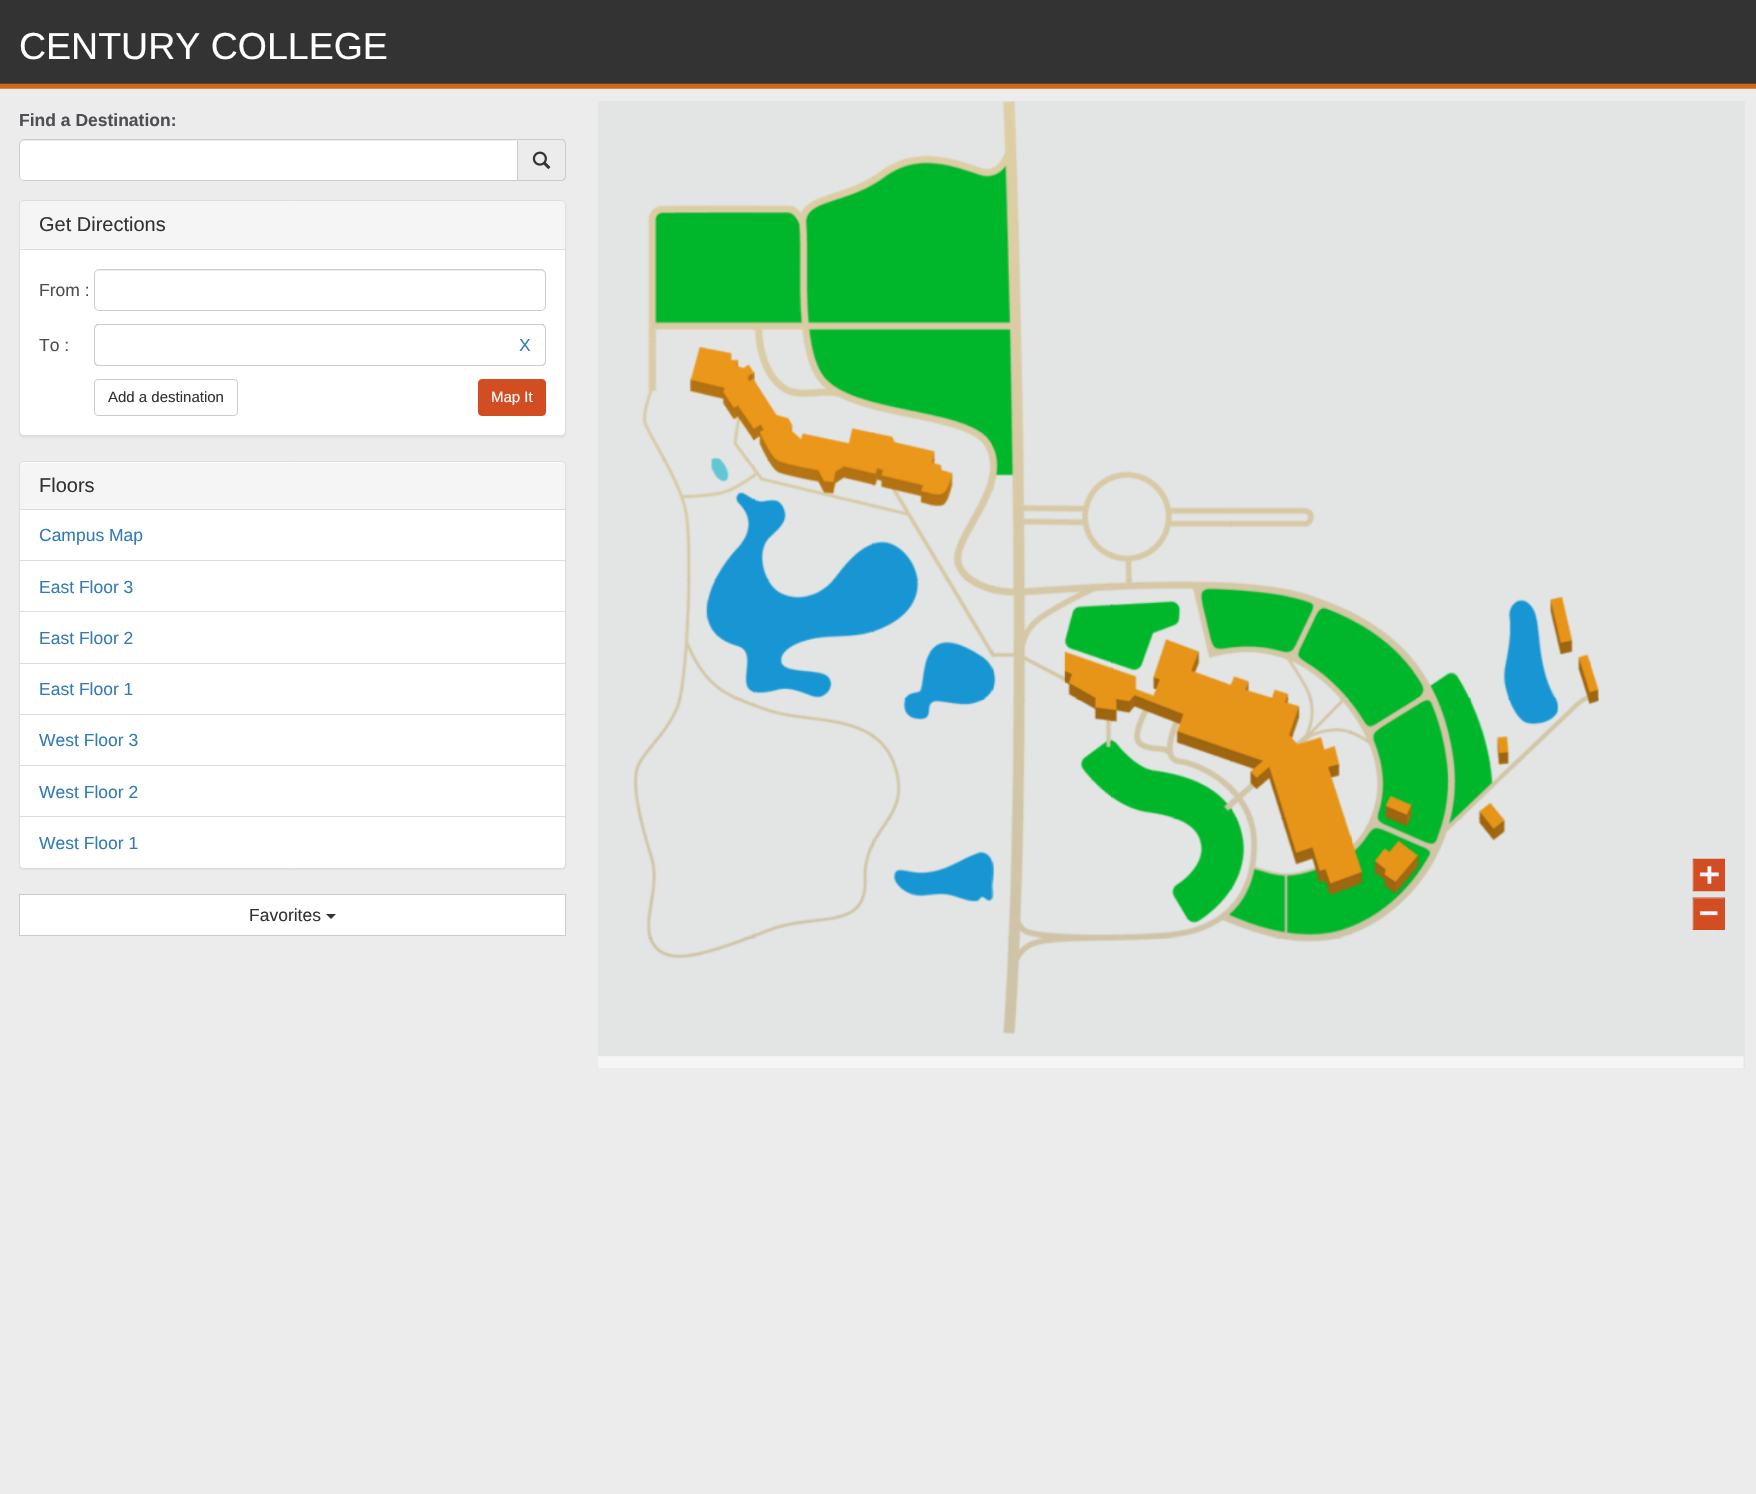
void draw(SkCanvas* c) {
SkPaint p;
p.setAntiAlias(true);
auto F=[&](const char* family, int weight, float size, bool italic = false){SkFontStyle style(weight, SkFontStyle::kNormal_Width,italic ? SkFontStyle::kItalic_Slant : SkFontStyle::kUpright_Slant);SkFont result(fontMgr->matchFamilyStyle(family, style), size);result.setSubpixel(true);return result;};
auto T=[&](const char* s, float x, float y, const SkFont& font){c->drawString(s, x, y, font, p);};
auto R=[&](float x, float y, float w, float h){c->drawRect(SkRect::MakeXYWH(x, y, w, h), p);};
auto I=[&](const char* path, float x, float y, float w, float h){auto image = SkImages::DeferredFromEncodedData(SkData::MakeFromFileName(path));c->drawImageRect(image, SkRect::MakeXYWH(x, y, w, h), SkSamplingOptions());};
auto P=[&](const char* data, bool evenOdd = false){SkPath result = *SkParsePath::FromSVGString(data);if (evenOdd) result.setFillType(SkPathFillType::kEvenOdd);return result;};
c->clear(0xffececec);
I("1.png",0,0,1756,89);
auto f1 = F("Liberation Sans",400,37.5);
p.setColor(0xffffffff);
T("CENTURY COLLEGE",19,59,f1);
auto f2 = F("Liberation Sans",700,17.5);
p.setColor(0xff4d4f53);
T("Find a Destination:",19,126,f2);
p.setColor(0xffffffff);
c->drawPath(P("M24 139h494v42h-494c-3 0-5-2-5-5v-32c0-3 2-5 5-5z"),p);
p.setColor(0xffececec);
c->drawPath(P("M24 141h492v-1h-492c-3 0-4 2-4 5c0-2 2-4 4-4z"),p);
p.setStroke(true);
p.setStrokeWidth(1);
p.setColor(0xffcccccc);
c->drawPath(P("M24 139.5h493.5v41h-493.5c-2.5 0-4.5-2-4.5-4.5v-32c0-2.5 2-4.5 4.5-4.5z"),p);
p.setStroke(false);
c->drawPath(P("M518 139h43c3 0 5 2 5 5v32c0 3-2 5-5 5h-43zm0 1h43c2 0 4 2 4 4v32c0 2-2 4-4 4h-43z",true),p);
I("2.png",532,151,19,18);
p.setColor(0x0d000000);
p.setMaskFilter(SkMaskFilter::MakeBlur(kNormal_SkBlurStyle, .5));
c->drawRoundRect(SkRect::MakeXYWH(19,201,547,237),5,5,p);
p.setMaskFilter(nullptr);
p.setColor(0xffffffff);
c->drawRoundRect(SkRect::MakeXYWH(19.5,200.5,546,235),4.5,4.5,p);
p.setStroke(true);
p.setColor(0xffdddddd);
c->drawRoundRect(SkRect::MakeXYWH(19.5,200.5,546,235),4.5,4.5,p);
p.setStroke(false);
p.setColor(0xfff5f5f5);
c->drawPath(P("M24 201h537c2 0 4 2 4 4v45h-545v-45c0-2 2-4 4-4z"),p);
p.setColor(0xffdddddd);
R(20,249,545,1);
auto f3 = F("Liberation Sans",400,20);
p.setColor(0xff333333);
T("Get Directions",39,231,f3);
auto f4 = F("Liberation Sans",400,17.5);
p.setColor(0xff4d4f53);
T("From :",39,296,f4);
p.setColor(0xffececec);
c->drawPath(P("M99 271h442c2 0 4 2 4 4c0-3-1-5-4-5h-442l-2 1l-1 1l-1 3c0-2 2-4 4-4z"),p);
p.setStroke(true);
p.setColor(0xffcccccc);
c->drawRoundRect(SkRect::MakeXYWH(94.5,269.5,451,41),4.5,4.5,p);
p.setStroke(false);
p.setColor(0xff4d4f53);
T("To :",39,351,f4);
p.setColor(0xffcccccc);
c->drawPath(P("M99 324h405v42h-405c-3 0-5-2-5-5v-32c0-3 2-5 5-5zm0 1h405v40h-405c-2 0-4-2-4-4v-32c0-2 2-4 4-4z",true),p);
c->drawPath(P("M504 324h37c3 0 5 2 5 5v32c0 3-2 5-5 5h-37zm0 1h37c2 0 4 2 4 4v32c0 2-2 4-4 4h-37z",true),p);
p.setColor(0xff337ab7);
T("X",519,351,f4);
p.setStroke(true);
p.setColor(0xffcccccc);
c->drawRoundRect(SkRect::MakeXYWH(94.5,379.5,143,36),3.5,3.5,p);
auto f5 = F("Liberation Sans",400,15);
p.setStroke(false);
p.setColor(0xff333333);
T("Add a destination",108,402,f5);
p.setColor(0xffd24d22);
c->drawRoundRect(SkRect::MakeXYWH(478.5,379.5,67,36),3.5,3.5,p);
p.setStroke(true);
c->drawRoundRect(SkRect::MakeXYWH(478.5,379.5,67,36),3.5,3.5,p);
p.setStroke(false);
p.setColor(0xffffffff);
T("Map It",491,402,f5);
p.setColor(0x0d000000);
p.setMaskFilter(SkMaskFilter::MakeBlur(kNormal_SkBlurStyle, .5));
c->drawRoundRect(SkRect::MakeXYWH(19,463,547,407),5,5,p);
p.setMaskFilter(nullptr);
p.setColor(0xffffffff);
c->drawRoundRect(SkRect::MakeXYWH(19.5,461.5,546,407),4.5,4.5,p);
p.setStroke(true);
p.setColor(0xffdddddd);
c->drawRoundRect(SkRect::MakeXYWH(19.5,461.5,546,407),4.5,4.5,p);
p.setStroke(false);
p.setColor(0xfff5f5f5);
c->drawPath(P("M24 463h537c2 0 4 2 4 4v43h-545v-43c0-2 2-4 4-4z"),p);
p.setColor(0xffdddddd);
R(20,509,545,1);
p.setColor(0xff333333);
T("Floors",39,492,f3);
p.setColor(0xffdddddd);
R(20,560,545,1);
p.setColor(0xff337ab7);
T("Campus Map",39,541,f4);
p.setColor(0xffdddddd);
R(20,611,545,1);
p.setColor(0xff337ab7);
T("East Floor 3",39,593,f4);
p.setColor(0xffdddddd);
R(20,663,545,1);
p.setColor(0xff337ab7);
T("East Floor 2",39,644,f4);
p.setColor(0xffdddddd);
R(20,714,545,1);
p.setColor(0xff337ab7);
T("East Floor 1",39,695,f4);
p.setColor(0xffdddddd);
R(20,765,545,1);
p.setColor(0xff337ab7);
T("West Floor 3",39,746,f4);
T("West Floor 2",39,798,f4);
p.setColor(0xffffffff);
c->drawPath(P("M20 816h545v48c0 2-2 4-4 4h-537c-2 0-4-2-4-4z"),p);
p.setColor(0xffdddddd);
R(20,816,545,1);
p.setColor(0xff337ab7);
T("West Floor 1",39,849,f4);
p.setColor(0xffffffff);
c->drawRect(SkRect::MakeXYWH(19.5,894.5,546,41),p);
p.setStroke(true);
p.setColor(0xffcccccc);
c->drawRect(SkRect::MakeXYWH(19.5,894.5,546,41),p);
p.setStroke(false);
p.setColor(0xff333333);
T("Favorites",249,921,f4);
c->drawPath(P("M326 914h10l-5 5z"),p);
I("3.png",598,101,1147,968);
}
